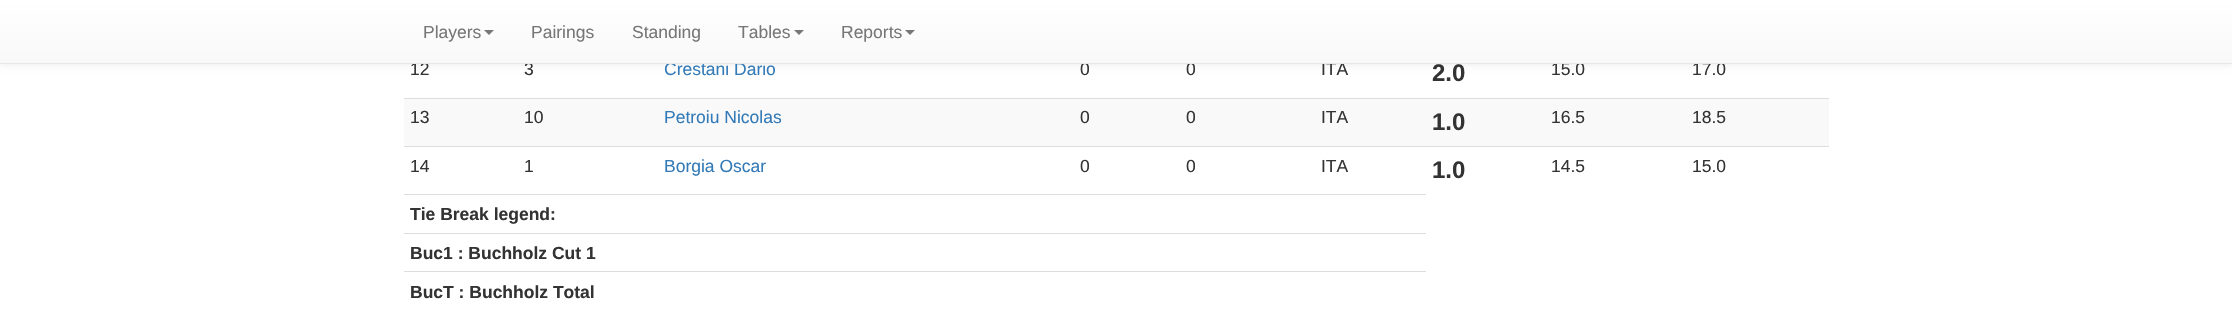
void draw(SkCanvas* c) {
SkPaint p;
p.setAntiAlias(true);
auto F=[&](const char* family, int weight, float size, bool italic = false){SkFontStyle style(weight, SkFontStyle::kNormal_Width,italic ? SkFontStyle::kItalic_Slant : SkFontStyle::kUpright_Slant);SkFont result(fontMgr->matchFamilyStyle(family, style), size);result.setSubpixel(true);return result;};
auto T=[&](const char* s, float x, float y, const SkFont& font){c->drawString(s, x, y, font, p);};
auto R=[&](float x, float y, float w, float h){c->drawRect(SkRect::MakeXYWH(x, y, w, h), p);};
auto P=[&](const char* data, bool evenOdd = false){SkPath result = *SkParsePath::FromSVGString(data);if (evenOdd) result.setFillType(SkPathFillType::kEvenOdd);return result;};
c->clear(0xffffffff);
p.setColor(0x12000000);
p.setMaskFilter(SkMaskFilter::MakeBlur(kNormal_SkBlurStyle, 3));
c->drawRect(SkRect::MakeXYWH(0,1,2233,64),p);
p.setMaskFilter(nullptr);
auto f1 = F("Liberation Sans",400,17.5);
p.setColor(0xff333333);
T("12",410,75,f1);
T("3",524,75,f1);
p.setColor(0xff337ab7);
T("Crestani Dario",664,75,f1);
p.setColor(0xff333333);
T("0",1080,75,f1);
T("0",1186,75,f1);
T("ITA",1321,75,f1);
T("15.0",1551,75,f1);
T("17.0",1692,75,f1);
{
const SkColor colors[] = {0xffffffff,0xfff8f8f8};
const float stops[] = {0,1};
const SkPoint ends[] = {{1116,0}, {1116,63}};
p.setShader(SkGradientShader::MakeLinear(ends, colors, stops, 2, SkTileMode::kClamp));
p.setAlpha(255);
}
R(0,0,2232,63);
auto f2 = F("Liberation Sans",700,24);
p.setShader(nullptr);
p.setColor(0xff333333);
T("2.0",1432,81,f2);
p.setColor(0xffe7e7e7);
R(0,63,2232,1);
p.setColor(0xff777777);
T("Players",423,38,f1);
c->drawPath(P("M484 30h10l-5 5z"),p);
T("Pairings",531,38,f1);
T("Standing",632,38,f1);
T("Tables",738,38,f1);
c->drawPath(P("M794 30h10l-5 5z"),p);
T("Reports",841,38,f1);
c->drawPath(P("M905 30h10l-5 5z"),p);
p.setColor(0xfff9f9f9);
R(404,99,1425,47);
p.setColor(0xff333333);
T("13",410,123,f1);
T("10",524,123,f1);
p.setColor(0xff337ab7);
T("Petroiu Nicolas",664,123,f1);
p.setColor(0xff333333);
T("0",1080,123,f1);
T("0",1186,123,f1);
T("ITA",1321,123,f1);
T("1.0",1432,130,f2);
T("16.5",1551,123,f1);
p.setColor(0xffdddddd);
R(404,98,1425,1);
p.setColor(0xff333333);
T("18.5",1692,123,f1);
T("14",410,172,f1);
T("1",524,172,f1);
p.setColor(0xff337ab7);
T("Borgia Oscar",664,172,f1);
p.setColor(0xff333333);
T("0",1080,172,f1);
T("0",1186,172,f1);
T("ITA",1321,172,f1);
T("1.0",1432,178,f2);
T("14.5",1551,172,f1);
p.setColor(0xffdddddd);
R(404,146,1425,1);
p.setColor(0xff333333);
T("15.0",1692,172,f1);
p.setColor(0xffdddddd);
R(404,194,1022,1);
auto f3 = F("Liberation Sans",700,17.5);
p.setColor(0xff333333);
T("Tie Break legend:",410,220,f3);
p.setColor(0xffdddddd);
R(404,233,1022,1);
p.setColor(0xff333333);
T("Buc1 : Buchholz Cut 1",410,259,f3);
p.setColor(0xffdddddd);
R(404,271,1022,1);
p.setColor(0xff333333);
T("BucT : Buchholz Total",410,298,f3);
}
